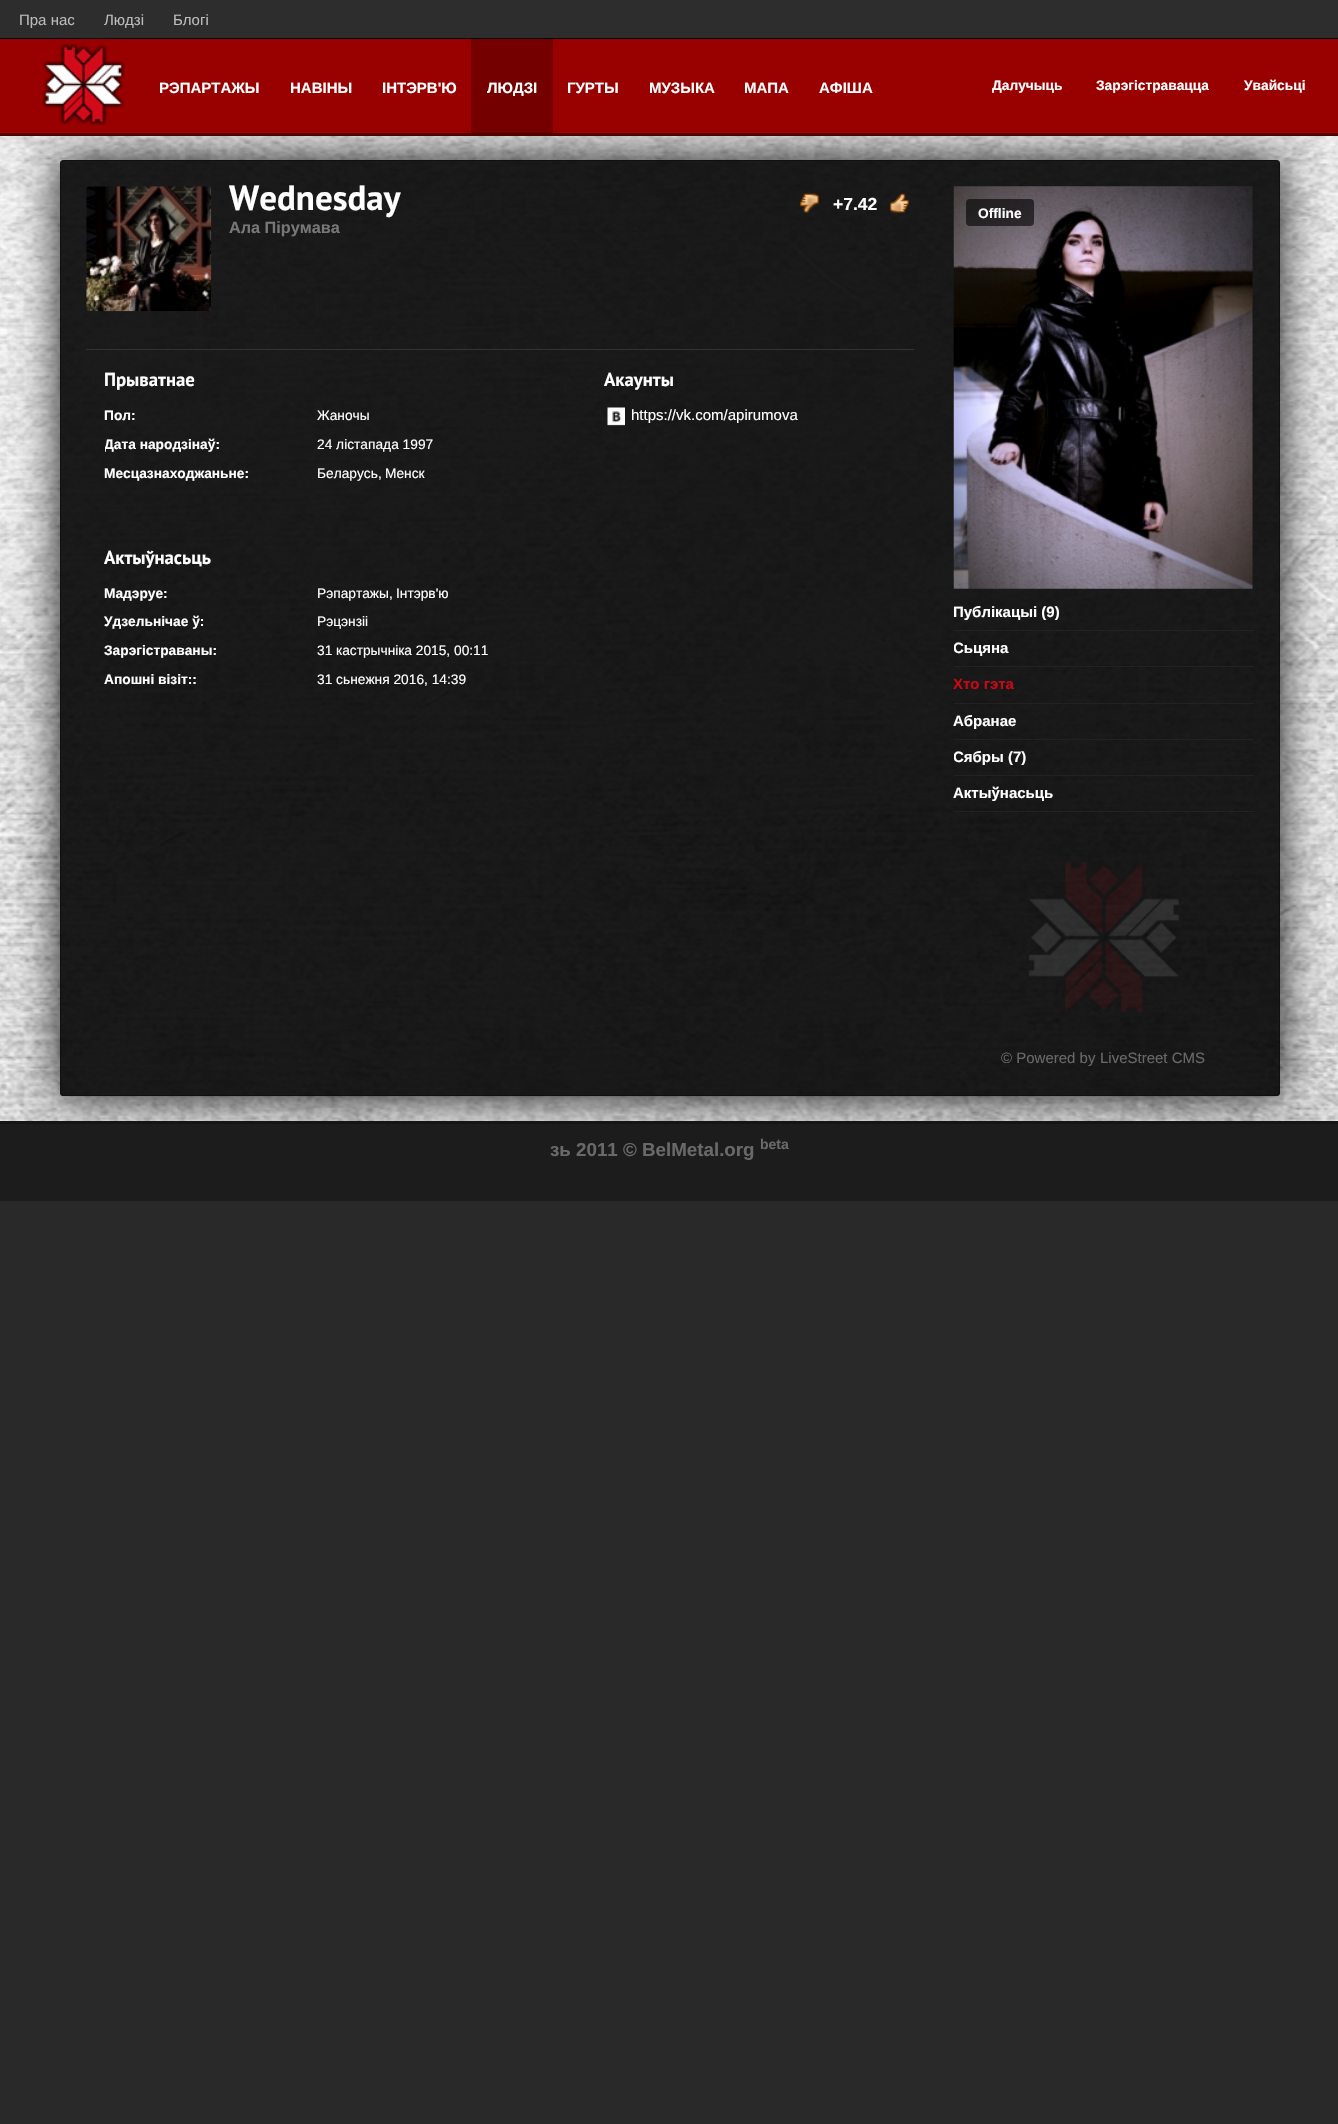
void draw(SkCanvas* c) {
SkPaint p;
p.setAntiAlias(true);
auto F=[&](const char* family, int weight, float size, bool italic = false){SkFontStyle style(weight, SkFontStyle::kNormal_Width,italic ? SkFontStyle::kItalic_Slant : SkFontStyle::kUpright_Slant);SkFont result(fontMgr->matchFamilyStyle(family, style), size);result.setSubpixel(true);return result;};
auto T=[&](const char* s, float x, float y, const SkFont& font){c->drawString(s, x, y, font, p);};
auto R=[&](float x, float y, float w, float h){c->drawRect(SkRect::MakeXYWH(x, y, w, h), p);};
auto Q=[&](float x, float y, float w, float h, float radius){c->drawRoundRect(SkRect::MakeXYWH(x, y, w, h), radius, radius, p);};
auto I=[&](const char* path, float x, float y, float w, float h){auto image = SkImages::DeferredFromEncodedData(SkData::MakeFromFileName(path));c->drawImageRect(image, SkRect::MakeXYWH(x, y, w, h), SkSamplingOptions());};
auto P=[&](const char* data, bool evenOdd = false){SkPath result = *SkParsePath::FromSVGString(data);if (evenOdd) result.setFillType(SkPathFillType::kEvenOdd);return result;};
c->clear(0xff292929);
I("1.png",0,136,1338,985);
p.setColor(0xff2d2d2d);
R(0,0,1338,38);
p.setColor(0xff000000);
R(0,38,1338,1);
auto f1 = F("Liberation Sans",400,15);
p.setColor(0xffbbbbbb);
T("Пра нас",19,25,f1);
T("Людзі",104,25,f1);
T("Блогі",173,25,f1);
c->save();
c->clipPath(P("M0 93h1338v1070h-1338zm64 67h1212c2 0 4 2 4 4v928c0 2-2 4-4 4h-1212c-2 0-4-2-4-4v-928c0-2 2-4 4-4z",true),true);
p.setColor(0xff101010);
p.setMaskFilter(SkMaskFilter::MakeBlur(kNormal_SkBlurStyle, 22));
c->drawRoundRect(SkRect::MakeXYWH(60,160,1220,936),4,4,p);
p.setMaskFilter(nullptr);
c->restore();
p.setColor(0xff990000);
R(0,39,1338,94);
p.setColor(0xff500000);
R(0,133,1338,3);
I("2.png",42,43,83,82);
auto f2 = F("Liberation Sans",700,15);
p.setColor(0xffffffff);
T("РЭПАРТАЖЫ",159,93,f2);
T("НАВІНЫ",290,93,f2);
T("ІНТЭРВ'Ю",382,93,f2);
p.setColor(0xff750000);
R(471,39,82,94);
p.setColor(0xffffffff);
T("ЛЮДЗІ",487,93,f2);
T("ГУРТЫ",567,93,f2);
T("МУЗЫКА",649,93,f2);
T("МАПА",744,93,f2);
T("АФІША",819,93,f2);
auto f3 = F("Liberation Sans",700,13.75);
T("Далучыць",992,90,f3);
T("Зарэгістравацца",1096,90,f3);
T("Увайсьці",1244,90,f3);
I("3.png",60,160,1220,937);
p.setStroke(true);
p.setStrokeWidth(1);
p.setColor(0xff101010);
c->drawRoundRect(SkRect::MakeXYWH(60.5,160.5,1219,935),3.5,3.5,p);
p.setStroke(false);
p.setColor(0xff333333);
R(86,349,828,1);
I("4.png",86,186,126,126);
auto f4 = F("PT Sans",700,35);
p.setColor(0xffffffff);
T("Wednesday",229,210,f4);
auto f5 = F("Liberation Sans",700,16.25);
p.setColor(0xff777777);
T("Ала Пірумава",229,233,f5);
I("5.png",799,193,20,20);
auto f6 = F("Liberation Sans",700,17.5);
p.setColor(0xffffffff);
T("+7.42",833,210,f6);
I("6.png",889,193,20,20);
auto f7 = F("PT Sans",700,18.75);
T("Прыватнае",104,386,f7);
T("Пол:",104,420,f3);
auto f8 = F("Liberation Sans",400,13.75);
T("Жаночы",317,420,f8);
c->save();
c->clipRect(SkRect::MakeXYWH(105,433,450,22));
T("Дата народзінаў:",104,449,f3);
c->restore();
T("24 лістапада 1997",317,449,f8);
T("Месцазнаходжаньне:",104,478,f3);
T("Беларусь",317,478,f8);
T(",",378,478,f8);
T("Менск",385,478,f8);
T("Актыўнасьць",104,564,f7);
T("Мадэруе:",104,598,f3);
T("Рэпартажы",317,598,f8);
T(",",389,598,f8);
T("Інтэрв'ю",396,598,f8);
T("Удзельнічае ў:",104,626,f3);
T("Рэцэнзіі",317,626,f8);
T("Зарэгістраваны:",104,655,f3);
T("31 кастрычніка 2015, 00:11",317,655,f8);
T("Апошні візіт::",104,684,f3);
T("31 сьнежня 2016, 14:39",317,684,f8);
T("Акаунты",604,386,f7);
I("7.png",607,407,18,19);
T("https://vk.com/apirumova",631,420,f1);
I("8.png",953,186,300,403);
p.setColor(0x9c000000);
Q(966,199,68,27,4);
p.setColor(0xffffffff);
T("Offline",978,218,f3);
p.setColor(0xff222222);
R(954,630,300,1);
p.setColor(0xffffffff);
T("Публікацыі (9)",953,617,f2);
p.setColor(0xff222222);
R(954,666,300,1);
c->save();
c->clipRect(SkRect::MakeXYWH(954,595,300,218));
p.setColor(0xffffffff);
T("Сьцяна",953,653,f2);
c->restore();
p.setColor(0xff222222);
R(954,703,300,1);
p.setColor(0xffca0814);
T("Хто гэта",953,689,f2);
p.setColor(0xff222222);
R(954,739,300,1);
p.setColor(0xffffffff);
T("Абранае",953,726,f2);
p.setColor(0xff222222);
R(954,775,300,1);
c->save();
c->clipRect(SkRect::MakeXYWH(954,595,300,218));
p.setColor(0xffffffff);
T("Сябры (7)",953,762,f2);
c->restore();
p.setColor(0xff222222);
R(954,811,300,1);
p.setColor(0xffffffff);
T("Актыўнасьць",953,798,f2);
I("9.png",1028,862,151,151);
p.setColor(0xff696969);
T("© Powered by",1001,1063,f1);
T("LiveStreet CMS",1100,1063,f1);
p.setColor(0xff1c1c1c);
R(0,1124,1338,77);
p.setColor(0xff151515);
R(0,1121,1338,3);
auto f9 = F("Liberation Sans",700,18.75);
p.setColor(0xff696969);
T("зь 2011",550,1156,f9);
T("© BelMetal.org",623,1156,f9);
auto f10 = F("Liberation Sans",700,14);
T("beta",760,1149,f10);
}
